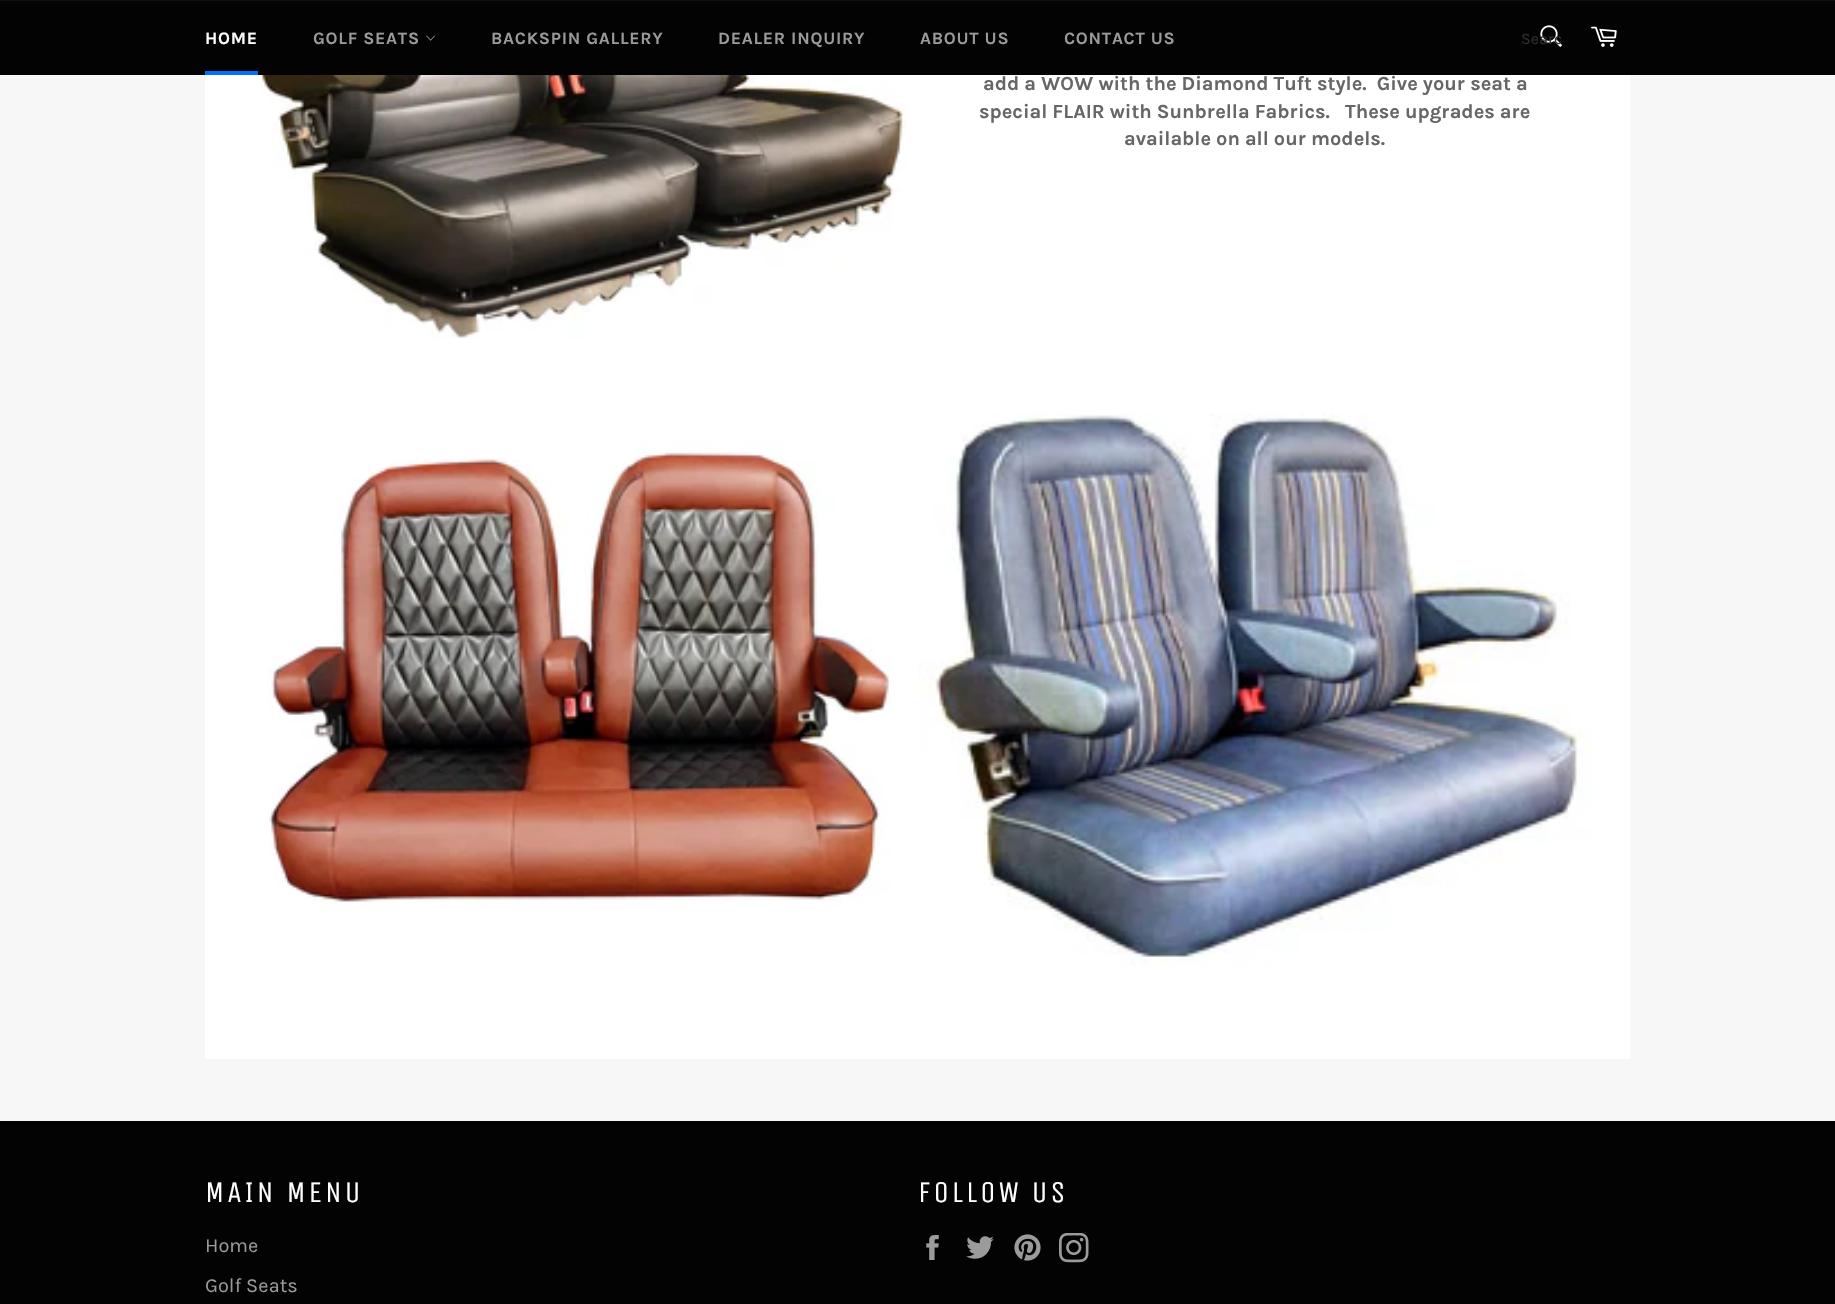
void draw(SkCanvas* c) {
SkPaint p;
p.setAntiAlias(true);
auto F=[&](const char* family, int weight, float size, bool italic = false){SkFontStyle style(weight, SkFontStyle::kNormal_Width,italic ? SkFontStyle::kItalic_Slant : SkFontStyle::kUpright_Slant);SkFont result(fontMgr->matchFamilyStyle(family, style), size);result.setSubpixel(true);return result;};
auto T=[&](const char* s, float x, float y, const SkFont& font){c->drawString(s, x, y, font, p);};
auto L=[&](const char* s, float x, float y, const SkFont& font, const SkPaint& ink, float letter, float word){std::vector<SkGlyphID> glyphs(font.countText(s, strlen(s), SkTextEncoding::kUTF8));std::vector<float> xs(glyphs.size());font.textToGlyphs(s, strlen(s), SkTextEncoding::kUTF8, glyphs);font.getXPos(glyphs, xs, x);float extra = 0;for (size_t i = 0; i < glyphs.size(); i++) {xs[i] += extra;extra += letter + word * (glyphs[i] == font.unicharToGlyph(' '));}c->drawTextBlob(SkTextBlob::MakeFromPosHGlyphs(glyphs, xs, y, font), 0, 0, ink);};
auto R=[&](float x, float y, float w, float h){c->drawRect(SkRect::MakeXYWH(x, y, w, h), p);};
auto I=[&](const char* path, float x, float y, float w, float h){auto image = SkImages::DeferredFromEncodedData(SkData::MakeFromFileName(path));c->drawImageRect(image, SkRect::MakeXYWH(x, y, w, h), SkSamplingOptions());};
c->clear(0xfff7f7f7);
p.setColor(0xff030303);
R(0,1,1835,74);
p.setColor(0xff101010);
R(0,0,1835,1);
auto f1 = F("Karla",700,17.5);
p.setColor(0xffffffff);
L("HOME",205,44,f1,p,.75,0);
p.setColor(0xff006eff);
R(205,71,53,4);
p.setColor(0xff9a9a9a);
L("GOLF SEATS",313,44,f1,p,.75,0);
I("1.png",426,35,9,6);
L("BACKSPIN GALLERY",491,44,f1,p,.75,0);
L("DEALER INQUIRY",718,44,f1,p,.75,0);
L("ABOUT US",920,44,f1,p,.75,0);
L("CONTACT US",1064,44,f1,p,.75,0);
I("2.png",1540,25,22,22);
c->save();
c->clipRect(SkRect::MakeXYWH(1521,29,40,19));
auto f2 = F("Karla",400,16);
p.setColor(0xff2e2e2e);
T("Searc",1521,44,f2);
c->restore();
I("3.png",1591,26,26,21);
p.setColor(0xffffffff);
R(205,75,1425,984);
I("4.png",258,75,650,264);
auto f3 = F("Karla",700,20);
p.setColor(0xff666666);
T("add a WOW with the Diamond Tuft style.  Give your seat a",983,90,f3);
T("special FLAIR with Sunbrella Fabrics.   These upgrades are",979,118,f3);
T("available on all our models.",1124,145,f3);
I("5.png",267,442,624,464);
I("6.png",918,413,675,553);
p.setColor(0xff030303);
R(0,1121,1835,183);
auto f4 = F("Unica One",400,30);
p.setColor(0xffffffff);
L("MAIN MENU",205,1202,f4,p,3,0);
auto f5 = F("Karla",400,20);
p.setColor(0xff9a9a9a);
T("Home",205,1252,f5);
T("Golf Seats",205,1292,f5);
p.setColor(0xffffffff);
L("FOLLOW US",918,1202,f4,p,3,0);
I("7.png",926,1235,13,25);
I("8.png",966,1236,28,23);
I("9.png",1014,1234,27,27);
I("10.png",1059,1233,30,30);
}
